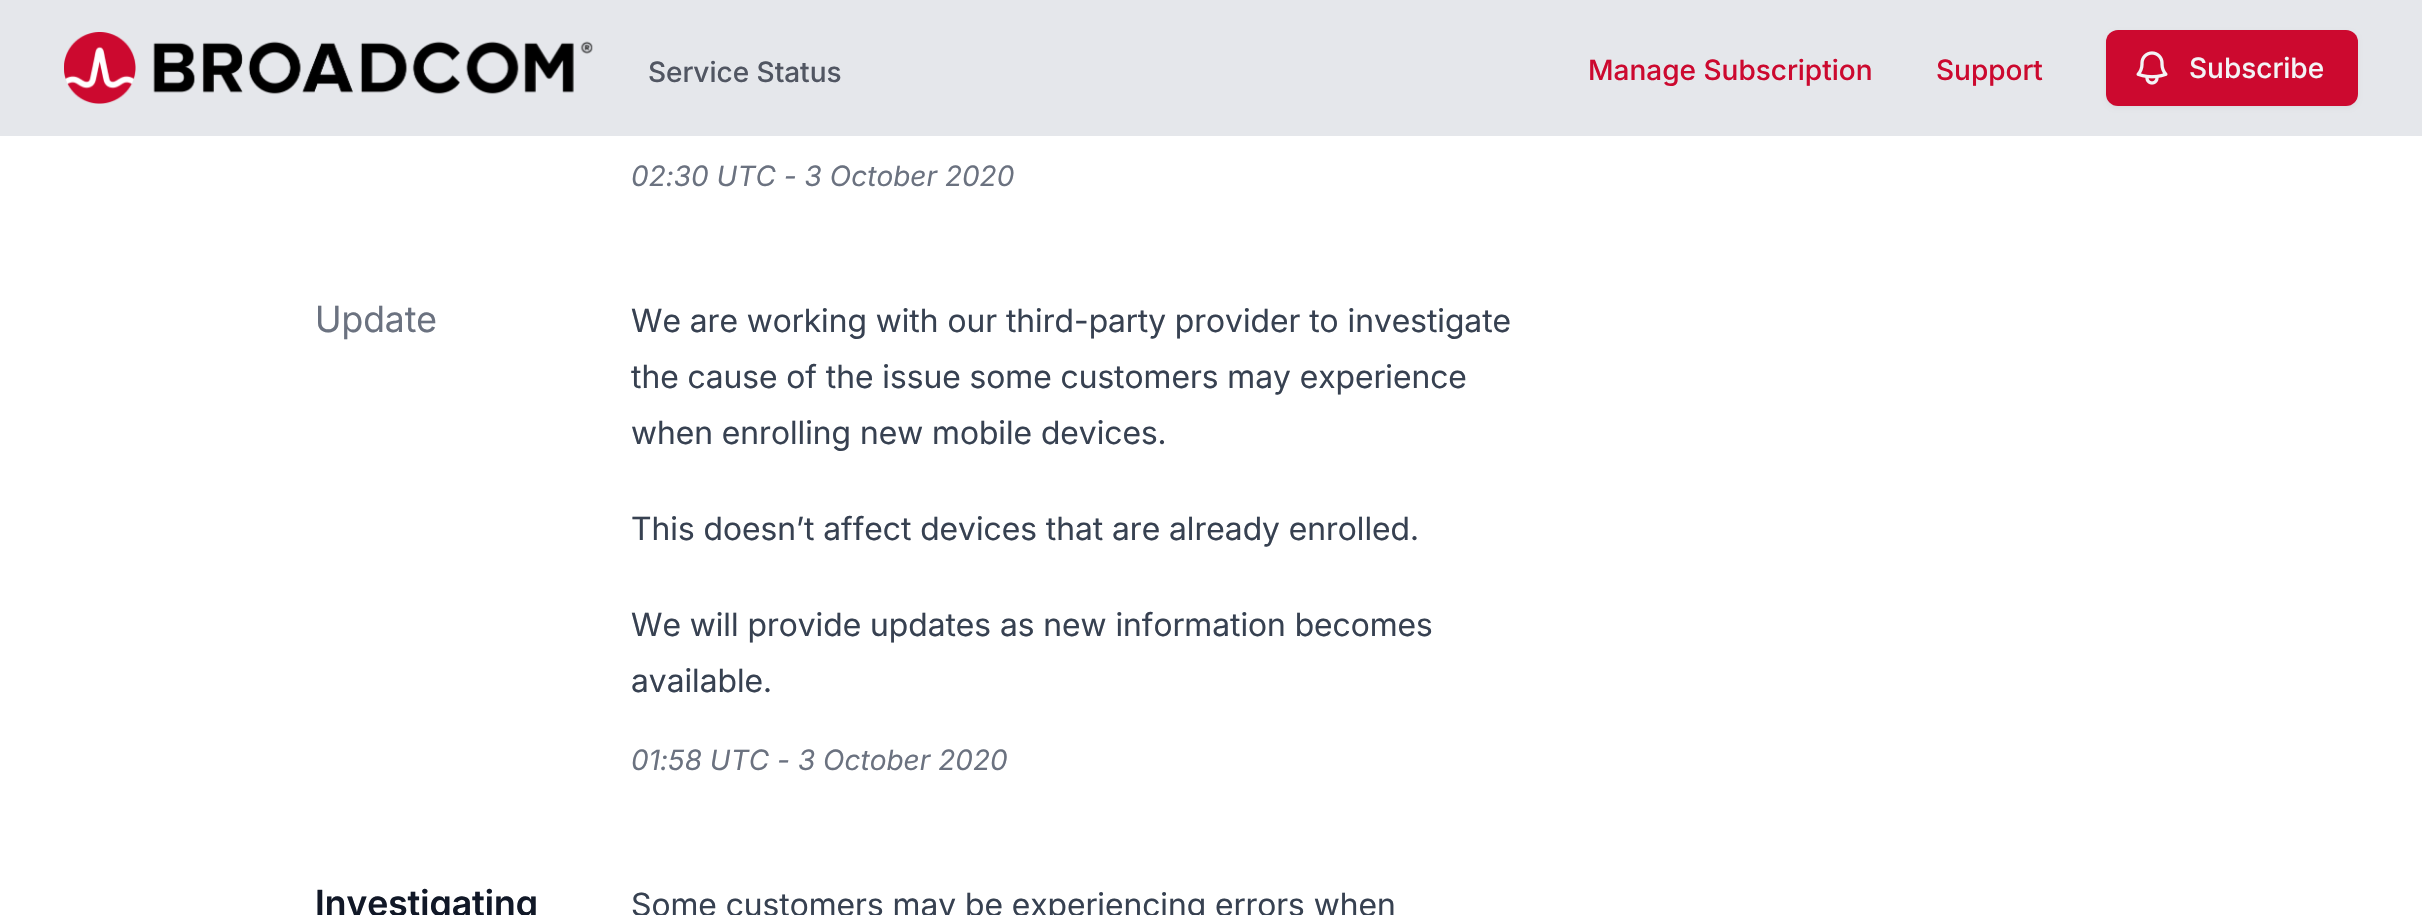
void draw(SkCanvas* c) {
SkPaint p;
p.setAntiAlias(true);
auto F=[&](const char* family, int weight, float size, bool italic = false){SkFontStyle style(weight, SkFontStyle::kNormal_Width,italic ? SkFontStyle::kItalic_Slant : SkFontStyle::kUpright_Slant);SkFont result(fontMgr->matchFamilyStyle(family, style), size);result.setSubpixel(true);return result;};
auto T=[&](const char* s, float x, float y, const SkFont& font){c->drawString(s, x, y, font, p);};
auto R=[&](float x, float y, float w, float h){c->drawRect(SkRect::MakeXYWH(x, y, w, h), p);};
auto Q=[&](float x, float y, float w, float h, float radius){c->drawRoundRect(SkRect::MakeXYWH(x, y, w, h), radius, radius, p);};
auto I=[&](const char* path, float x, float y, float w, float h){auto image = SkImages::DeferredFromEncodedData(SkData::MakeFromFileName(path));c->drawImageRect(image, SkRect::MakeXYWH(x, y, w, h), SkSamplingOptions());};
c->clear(0xffffffff);
p.setColor(0xffe5e7eb);
R(0,0,2422,136);
I("1.png",64,32,529,72);
auto f1 = F("Inter",500,28);
p.setColor(0xff515662);
T("Service Status",648,82,f1);
p.setColor(0xffcc092f);
T("Manage Subscription",1588,80,f1);
T("Support",1936,80,f1);
p.setColor(0x0d000000);
p.setMaskFilter(SkMaskFilter::MakeBlur(kNormal_SkBlurStyle, 2));
c->drawRoundRect(SkRect::MakeXYWH(2106,32,252,76),12,12,p);
p.setMaskFilter(nullptr);
p.setColor(0xffcc092f);
Q(2106,30,252,76,12);
I("2.png",2136,51,32,34);
p.setColor(0xfff3f4f6);
T("Subscribe",2189,78,f1);
auto f2 = F("Inter",400,28,true);
p.setColor(0xff6b7280);
T("02:30 UTC - 3 October 2020",631,186,f2);
auto f3 = F("Inter",400,36);
T("Update",315,332,f3);
auto f4 = F("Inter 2",400,32);
p.setColor(0xff374151);
T("We are working with our third-party provider to investigate",631,332,f4);
T("the cause of the issue some customers may experience",631,388,f4);
T("when enrolling new mobile devices.",631,444,f4);
T("This doesn’t affect devices that are already enrolled.",631,540,f4);
T("We will provide updates as new information becomes",631,636,f4);
T("available.",631,692,f4);
p.setColor(0xff6b7280);
T("01:58 UTC - 3 October 2020",631,770,f2);
auto f5 = F("Inter",600,36);
p.setColor(0xff111827);
T("Investigating",315,916,f5);
p.setColor(0xff374151);
T("Some customers may be experiencing errors when",631,916,f4);
}
